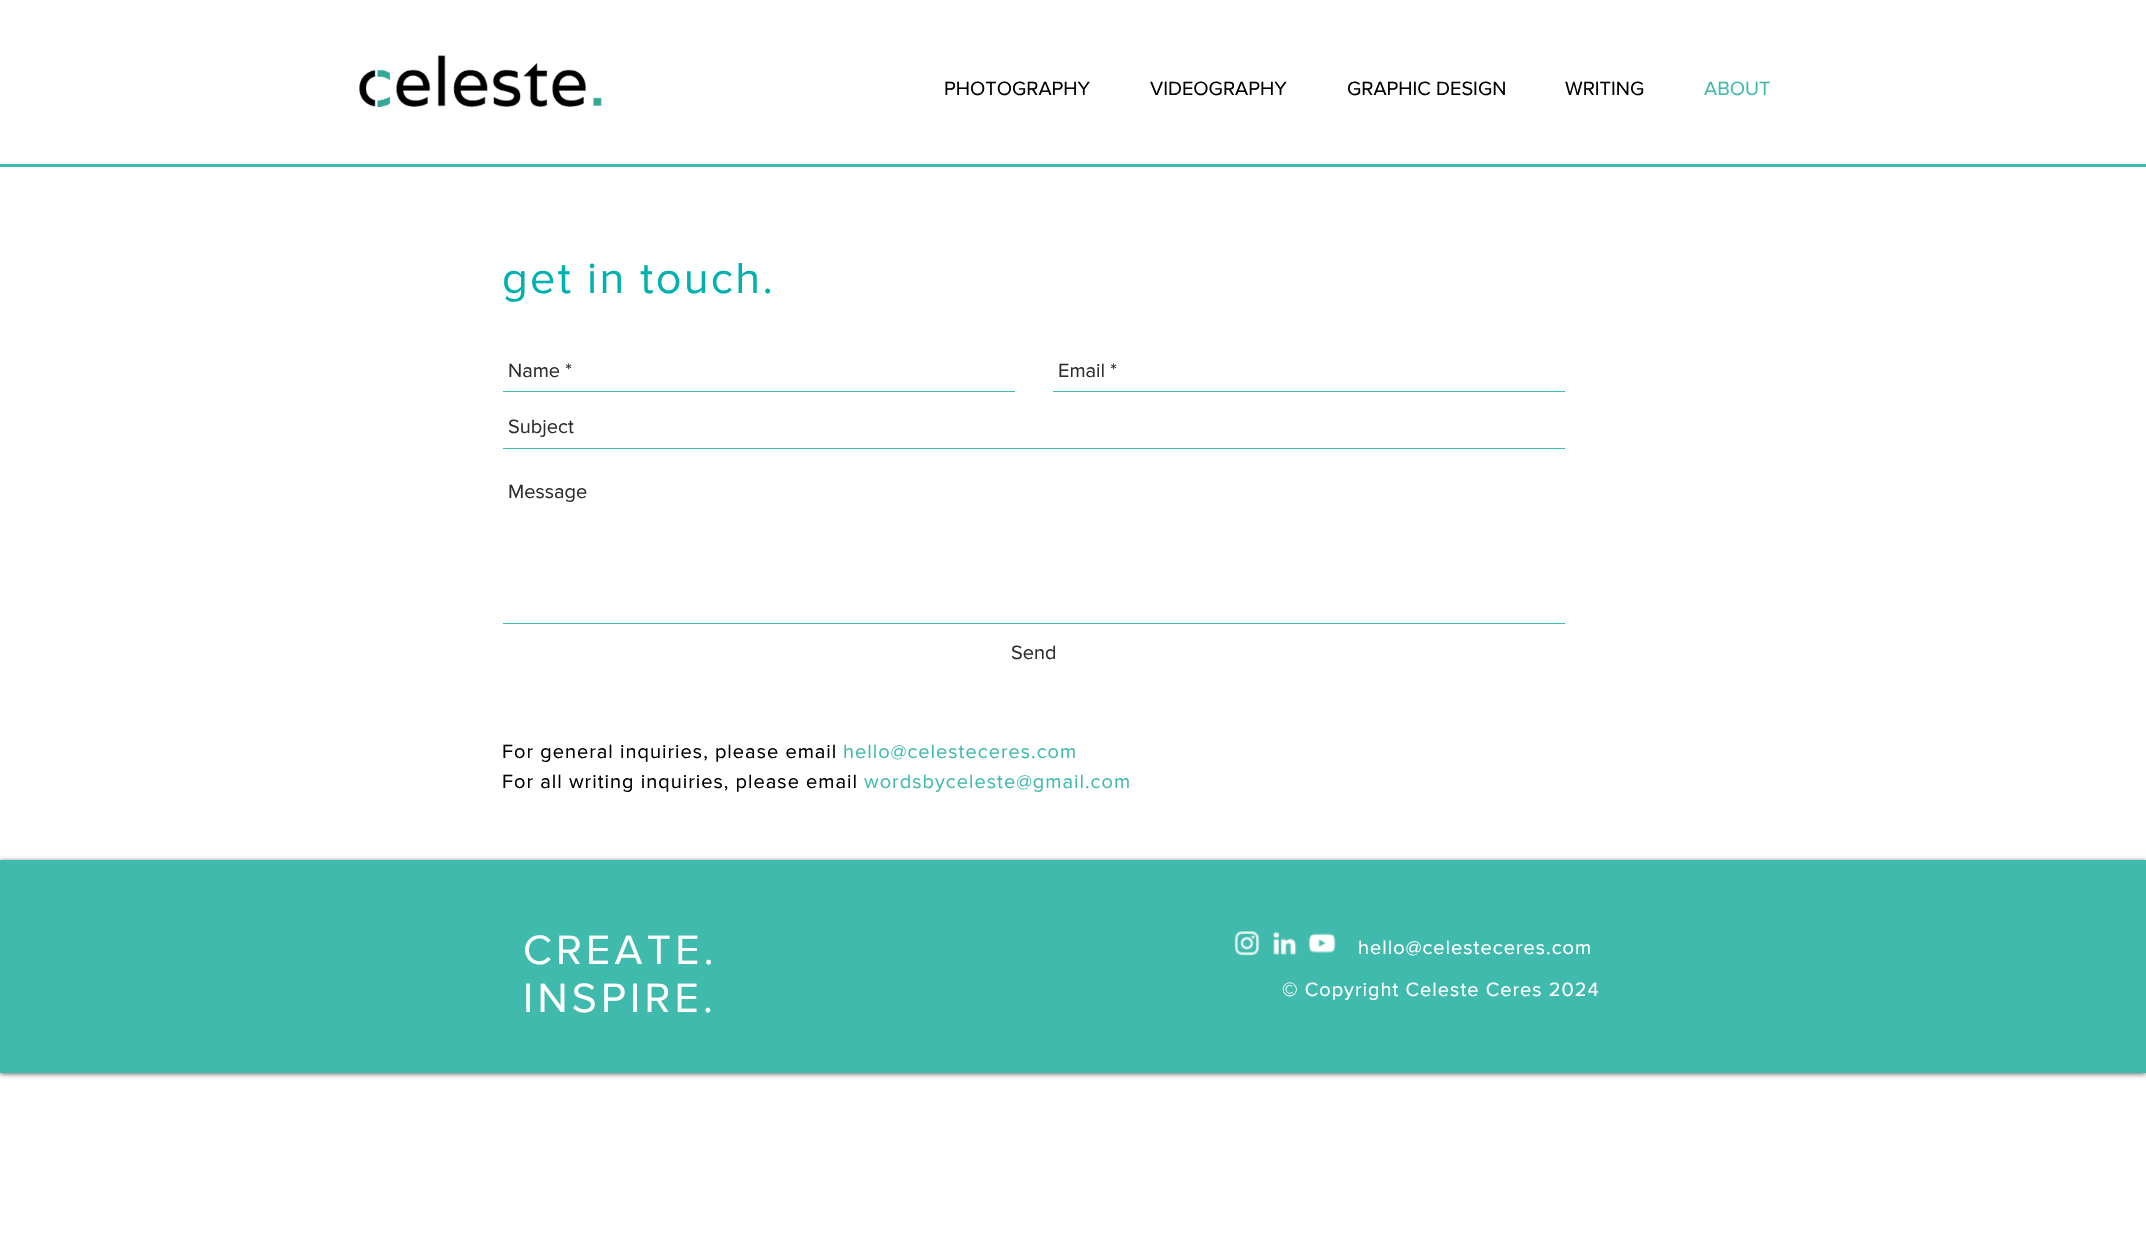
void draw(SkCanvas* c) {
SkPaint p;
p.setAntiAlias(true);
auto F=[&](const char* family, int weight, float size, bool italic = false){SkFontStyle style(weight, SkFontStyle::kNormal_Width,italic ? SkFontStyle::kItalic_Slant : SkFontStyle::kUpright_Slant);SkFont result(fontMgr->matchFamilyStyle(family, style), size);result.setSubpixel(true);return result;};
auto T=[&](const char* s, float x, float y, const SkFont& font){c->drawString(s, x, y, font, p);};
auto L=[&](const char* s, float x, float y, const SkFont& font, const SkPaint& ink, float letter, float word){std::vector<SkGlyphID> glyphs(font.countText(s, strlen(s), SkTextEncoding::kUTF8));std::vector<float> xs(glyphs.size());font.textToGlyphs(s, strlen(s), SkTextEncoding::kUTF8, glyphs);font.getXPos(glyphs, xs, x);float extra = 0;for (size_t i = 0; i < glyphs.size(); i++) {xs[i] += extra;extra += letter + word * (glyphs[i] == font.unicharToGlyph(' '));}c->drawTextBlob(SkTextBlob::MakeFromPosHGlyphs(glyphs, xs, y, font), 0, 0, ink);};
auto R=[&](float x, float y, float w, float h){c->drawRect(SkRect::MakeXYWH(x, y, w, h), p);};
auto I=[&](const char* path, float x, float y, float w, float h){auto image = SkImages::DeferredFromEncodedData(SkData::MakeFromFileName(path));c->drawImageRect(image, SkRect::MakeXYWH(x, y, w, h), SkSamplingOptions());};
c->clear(0xffffffff);
I("1.png",359,55,243,52);
p.setColor(0xff41baae);
R(0,164,2146,3);
auto f1 = F("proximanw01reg",400,20);
p.setColor(0xff000000);
T("PHOTOGRAPHY",944,95,f1);
T("VIDEOGRAPHY",1150,95,f1);
T("GRAPHIC DESIGN",1347,95,f1);
T("WRITING",1565,95,f1);
p.setColor(0xff41baae);
T("ABOUT",1704,95,f1);
auto f2 = F("proximanw01reg",400,45);
p.setColor(0xff01b1af);
L("get in touch.",502,293,f2,p,2.25,0);
p.setColor(0xff41baae);
R(503,391,512,1);
p.setColor(0xff2f2e2e);
T("Name *",508,377,f1);
p.setColor(0xff41baae);
R(1053,391,512,1);
p.setColor(0xff2f2e2e);
T("Email *",1058,377,f1);
p.setColor(0xff41baae);
R(503,448,1062,1);
p.setColor(0xff2f2e2e);
T("Subject",508,433,f1);
p.setColor(0xff41baae);
R(503,623,1062,1);
p.setColor(0xff2f2e2e);
T("Message",508,498,f1);
T("Send",1011,659,f1);
p.setColor(0xff000000);
L("For general inquiries, please email",502,758,f1,p,1,0);
p.setColor(0xff41baae);
L("hello@celesteceres.com",843,758,f1,p,1,0);
p.setColor(0xff000000);
L("For all writing inquiries, please email",502,788,f1,p,1,0);
p.setColor(0xff41baae);
L("wordsbyceleste@gmail.com",864,788,f1,p,1,0);
p.setColor(0x99000000);
p.setMaskFilter(SkMaskFilter::MakeBlur(kNormal_SkBlurStyle, 2.5));
c->drawRect(SkRect::MakeXYWH(0,861,2146,213),p);
p.setMaskFilter(nullptr);
p.setColor(0xff41baae);
R(0,860,2146,213);
auto f3 = F("proximanw01reg",400,42.5);
p.setColor(0xffffffff);
L("CREATE.",523,964,f3,p,4.25,0);
L("INSPIRE.",523,1012,f3,p,4.25,0);
I("2.png",1234,931,25,25);
I("3.png",1272,932,25,24);
I("4.png",1308,933,28,20);
L("hello@celesteceres.com",1358,954,f1,p,1,0);
L("© Copyright Celeste Ceres 2024",1282,996,f1,p,1,0);
}
